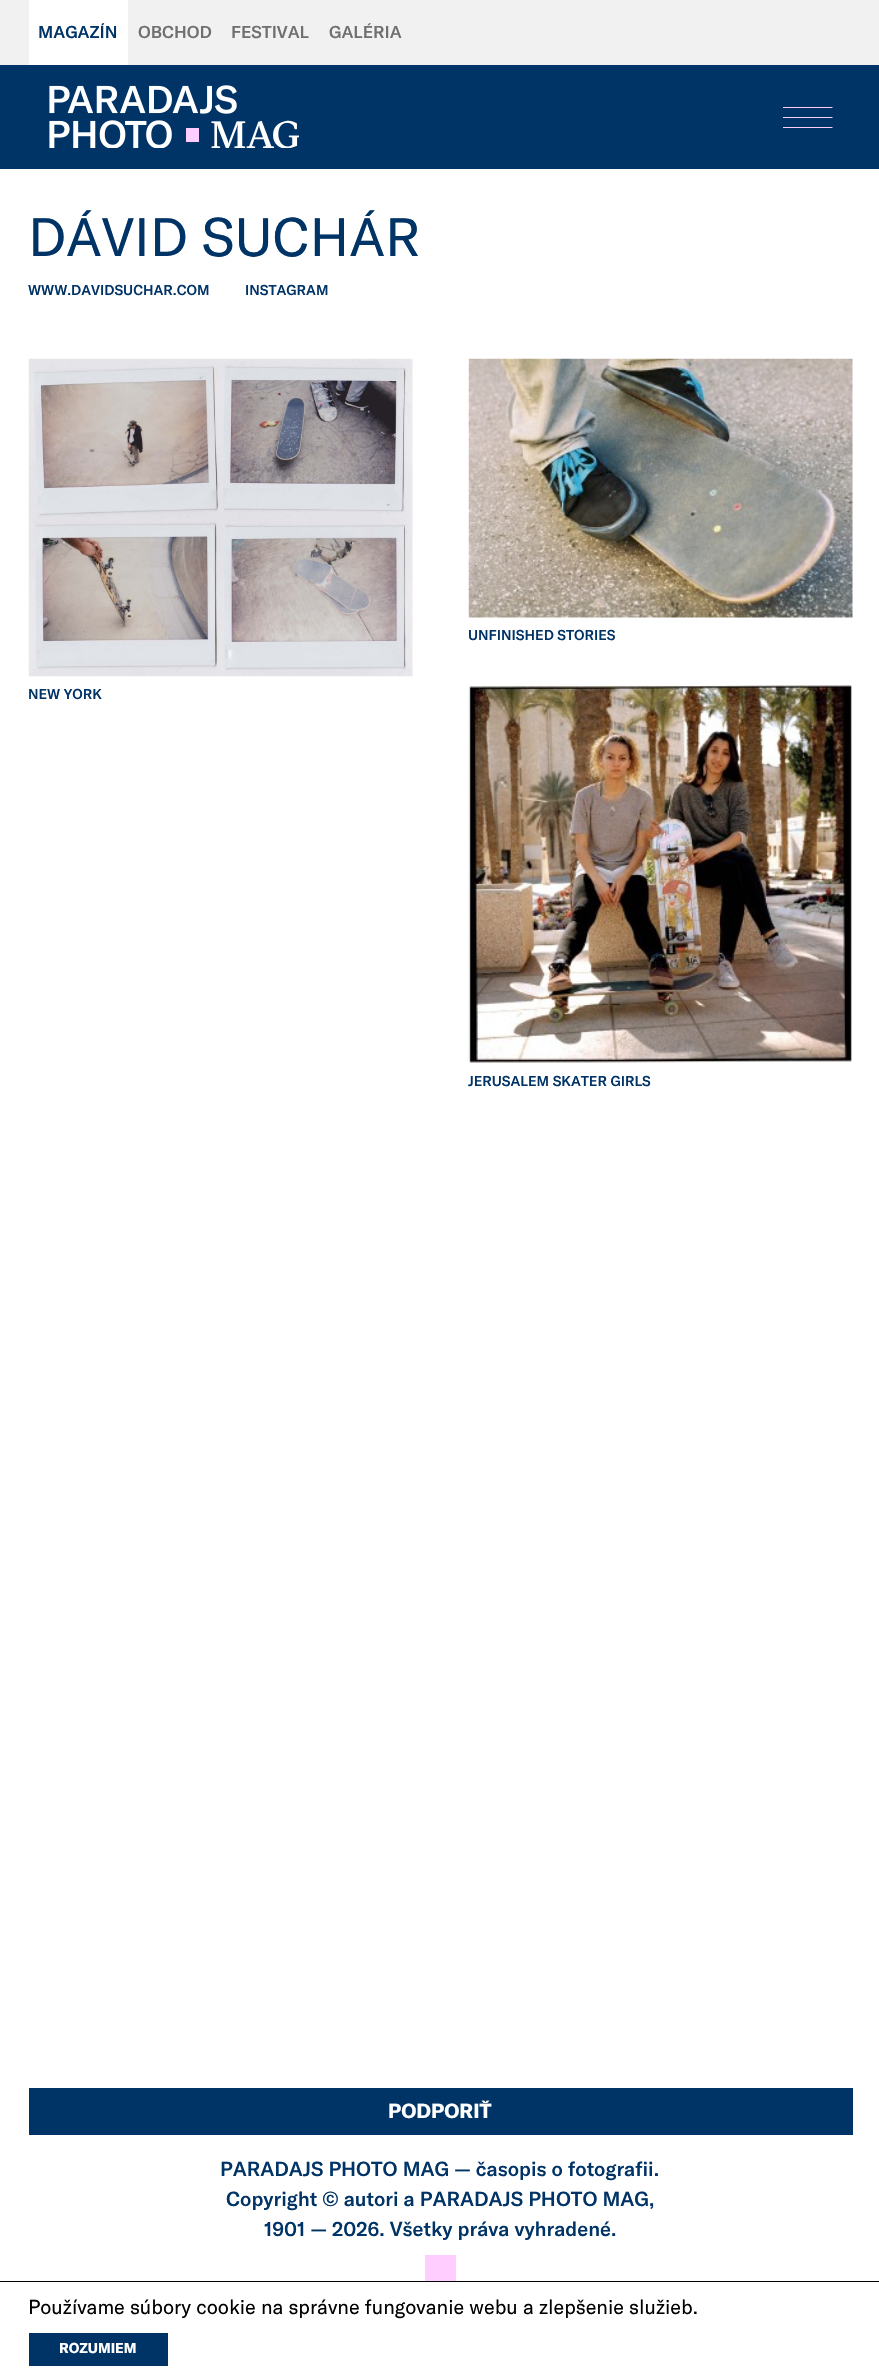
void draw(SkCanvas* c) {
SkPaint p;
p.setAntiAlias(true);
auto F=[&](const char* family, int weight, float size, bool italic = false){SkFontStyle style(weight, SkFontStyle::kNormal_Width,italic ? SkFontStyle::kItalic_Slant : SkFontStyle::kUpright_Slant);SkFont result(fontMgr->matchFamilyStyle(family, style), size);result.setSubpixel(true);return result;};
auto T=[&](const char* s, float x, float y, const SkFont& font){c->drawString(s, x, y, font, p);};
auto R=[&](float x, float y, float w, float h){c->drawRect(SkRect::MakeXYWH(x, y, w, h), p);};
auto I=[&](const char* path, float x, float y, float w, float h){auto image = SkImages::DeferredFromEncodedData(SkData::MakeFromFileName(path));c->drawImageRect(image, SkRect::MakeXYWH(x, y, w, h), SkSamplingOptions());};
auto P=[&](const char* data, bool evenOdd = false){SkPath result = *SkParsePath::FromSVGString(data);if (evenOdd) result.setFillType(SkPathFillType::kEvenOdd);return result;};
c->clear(0xffffffff);
p.setColor(0xfff1f1f1);
R(0,0,879,65);
p.setColor(0xffffffff);
R(29,0,99,65);
auto f1 = F("GT America",500,17);
p.setColor(0xff003366);
T("MAGAZÍN",38,38,f1);
p.setColor(0xff707070);
T("OBCHOD",138,38,f1);
T("FESTIVAL",231,38,f1);
T("GALÉRIA",329,38,f1);
p.setColor(0xff003366);
R(0,65,879,104);
I("1.png",49,85,250,63);
c->save();
c->clipRect(SkRect::MakeXYWH(783,99,50,37));
p.setStroke(true);
p.setStrokeWidth(1.2);
p.setColor(0xffffccff);
c->drawPath(P("M782.5 107.5h50m-50 10h50m-50 10h50"),p);
c->restore();
auto f2 = F("GT America",400,53.25);
p.setStroke(false);
p.setColor(0xff003366);
T("DÁVID SUCHÁR",28,256,f2);
auto f3 = F("GT America",500,14);
T("WWW.DAVIDSUCHAR.COM",28,295,f3);
T("INSTAGRAM",245,295,f3);
I("2.png",468,358,385,260);
T("UNFINISHED STORIES",468,640,f3);
I("3.png",28,358,385,319);
T("NEW YORK",28,699,f3);
I("4.png",468,685,385,378);
T("JERUSALEM SKATER GIRLS",468,1086,f3);
R(29,2088,824,47);
auto f4 = F("GT America",700,20);
p.setColor(0xffffffff);
T("PODPORIŤ",388,2118,f4);
auto f5 = F("GT America",500,20);
p.setColor(0xff003366);
T("PARADAJS PHOTO MAG — časopis o fotografii.",220,2176,f5);
T("Copyright © autori a PARADAJS PHOTO MAG,",226,2206,f5);
T("1901 — 2026. Všetky práva vyhradené.",264,2236,f5);
p.setColor(0xffffcdff);
R(425,2255,31,26);
p.setColor(0xff000000);
R(0,2281,879,1);
auto f6 = F("GT America",400,20);
T("Používame súbory cookie na správne fungovanie webu a zlepšenie služieb.",28,2314,f6);
p.setColor(0xff003366);
R(29,2333,139,33);
auto f7 = F("GT America",700,14);
p.setColor(0xffffffff);
T("ROZUMIEM",59,2353,f7);
}
